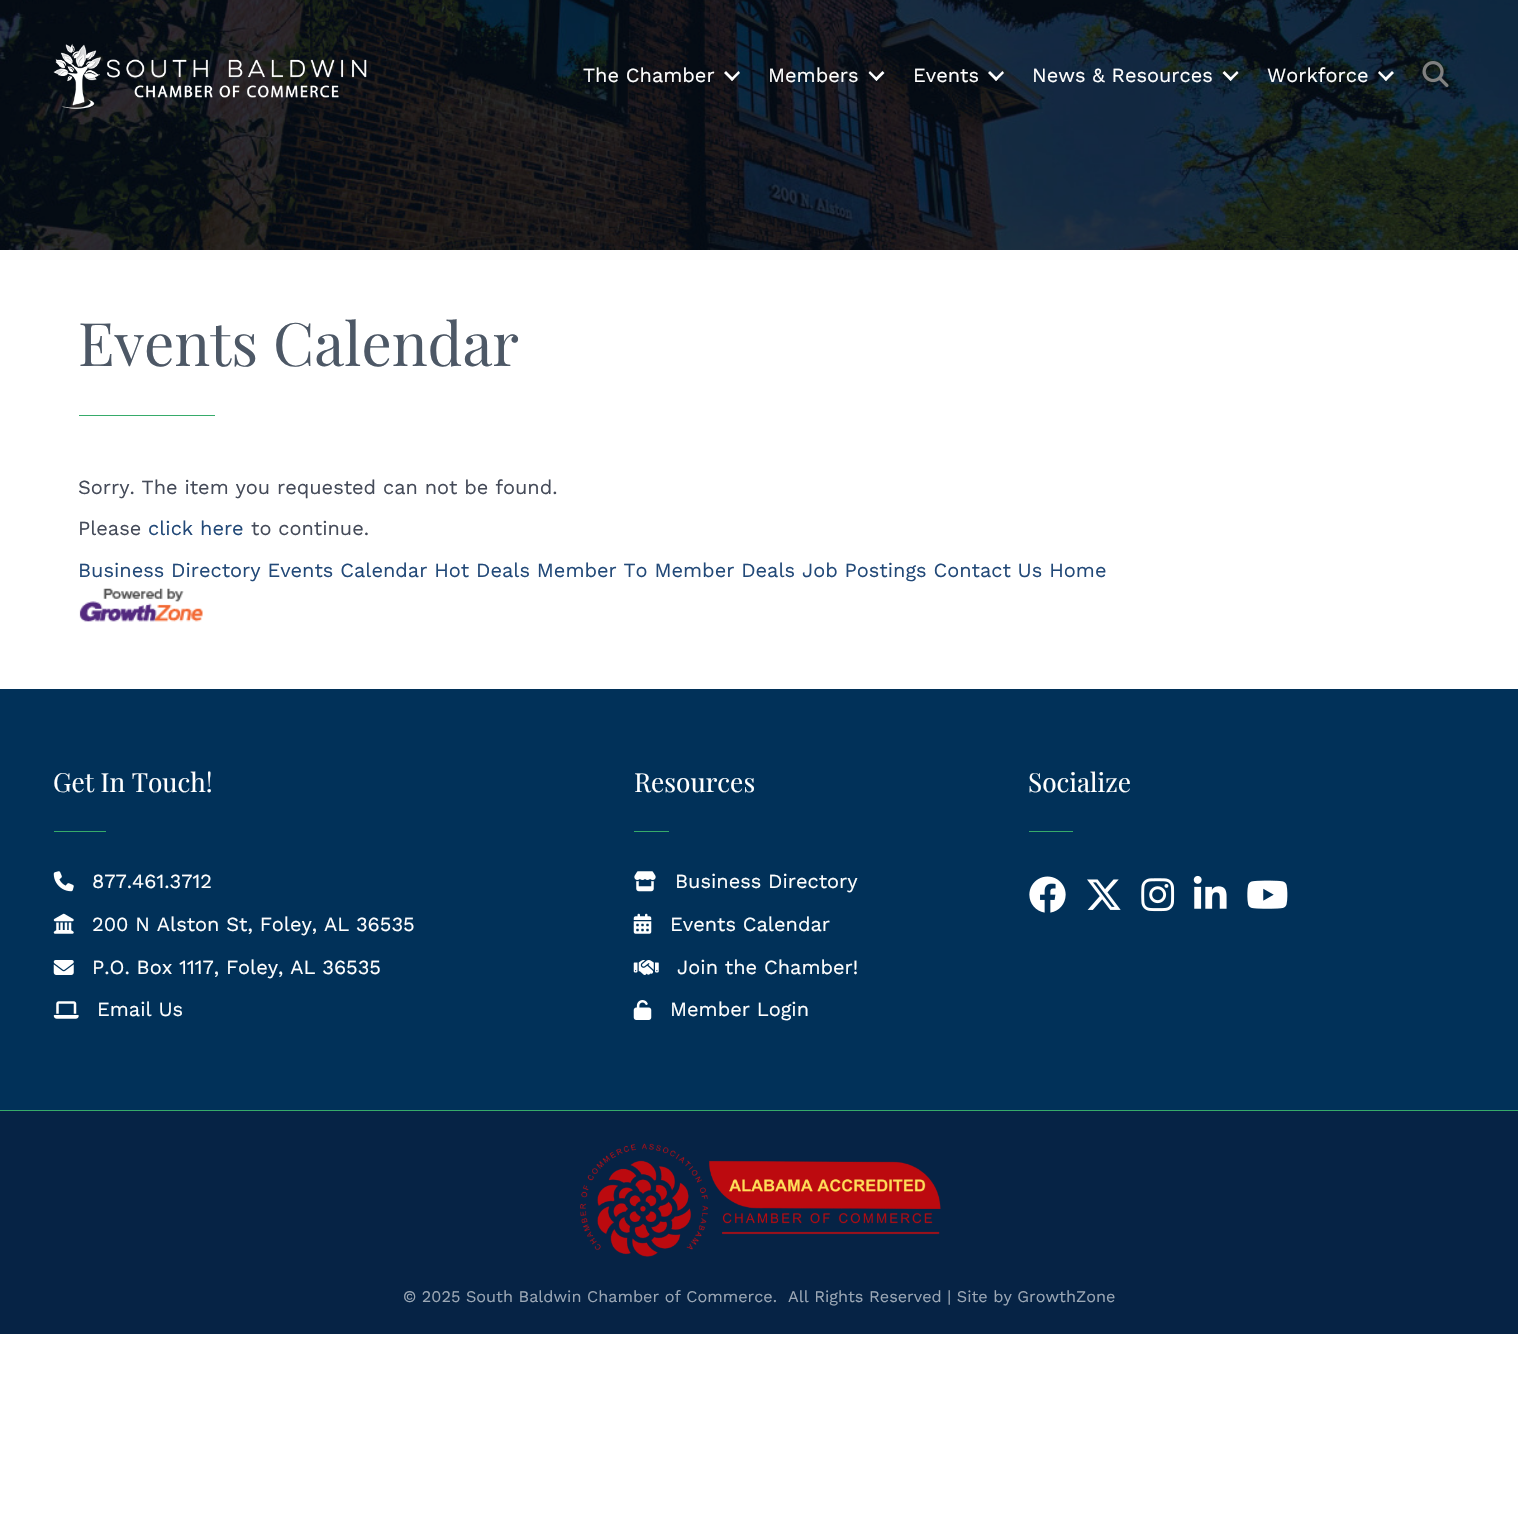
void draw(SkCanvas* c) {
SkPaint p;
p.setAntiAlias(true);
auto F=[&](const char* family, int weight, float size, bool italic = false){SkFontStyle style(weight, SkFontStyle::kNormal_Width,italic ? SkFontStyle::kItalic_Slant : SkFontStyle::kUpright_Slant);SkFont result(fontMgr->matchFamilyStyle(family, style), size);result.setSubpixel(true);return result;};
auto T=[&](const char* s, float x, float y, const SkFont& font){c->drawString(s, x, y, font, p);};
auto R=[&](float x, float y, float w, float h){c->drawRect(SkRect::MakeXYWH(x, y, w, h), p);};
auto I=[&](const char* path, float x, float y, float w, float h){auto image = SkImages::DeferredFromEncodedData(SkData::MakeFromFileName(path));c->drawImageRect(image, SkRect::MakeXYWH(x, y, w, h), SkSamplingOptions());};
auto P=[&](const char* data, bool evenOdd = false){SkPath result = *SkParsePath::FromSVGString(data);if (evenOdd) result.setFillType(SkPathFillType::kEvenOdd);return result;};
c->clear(0xffffffff);
I("3.png",0,0,1518,250);
I("1.png",53,43,314,66);
auto f1 = F("Work Sans",400,20);
p.setColor(0xffffffff);
T("The Chamber",583,82,f1);
c->drawPath(P("M738.5 71l1.5 2l-8 8l-1.5-2z"),p);
c->drawPath(P("M726 71l8 8l-2 2l-8-8z"),p);
T("Members",768,82,f1);
c->drawPath(P("M882.5 71l2 2l-8 8l-2-2z"),p);
c->drawPath(P("M870 71l8 8l-1.5 2l-8-8z"),p);
T("Events",913,82,f1);
c->drawPath(P("M1002.5 71l1.5 2l-8 8l-1.5-2z"),p);
c->drawPath(P("M990 71l8 8l-2 2l-8-8z"),p);
T("News & Resources",1032,82,f1);
c->drawPath(P("M1237 71l1.5 2l-8 8l-1.5-2z"),p);
c->drawPath(P("M1224.5 71l8 8l-2 2l-8-8z"),p);
T("Workforce",1267,82,f1);
c->drawPath(P("M1392 71l2 2l-8 8l-2-2z"),p);
c->drawPath(P("M1379.5 71l8 8l-1.5 2l-8-8z"),p);
I("2.png",1422,61,27,26);
auto f2 = F("Playfair Display",400,60);
p.setColor(0xff4d5866);
T("Events Calendar",78,366,f2);
p.setColor(0xff36ab6a);
R(79,415,136,1);
p.setColor(0xff454b59);
T("Sorry. The item you requested can not be found.",78,494,f1);
T("Please",78,535,f1);
p.setColor(0xff224978);
T("click here",148,535,f1);
p.setColor(0xff454b59);
T("to continue.",251,535,f1);
p.setColor(0xff224978);
T("Business Directory Events Calendar Hot Deals Member To Member Deals Job Postings Contact Us Home",78,577,f1);
I("4.png",79,588,124,34);
p.setColor(0xff013159);
R(0,689,1518,421);
auto f3 = F("Playfair Display",400,26.25);
p.setColor(0xffffffff);
T("Get In Touch!",53,792,f3);
p.setColor(0xff36ab6a);
R(54,831,52,1);
I("5.png",53,871,21,21);
p.setColor(0xffffffff);
T("877.461.3712",92,888,f1);
I("6.png",53,913,21,21);
T("200 N Alston St, Foley, AL 36535",92,931,f1);
I("7.png",53,960,21,15);
T("P.O. Box 1117, Foley, AL 36535",92,974,f1);
I("8.png",53,1001,26,18);
T("Email Us",97,1016,f1);
T("Resources",634,792,f3);
p.setColor(0xff36ab6a);
R(634,831,35,1);
I("9.png",634,871,22,21);
p.setColor(0xffffffff);
T("Business Directory",675,888,f1);
I("10.png",633,913,19,21);
T("Events Calendar",670,931,f1);
I("11.png",633,960,26,15);
T("Join the Chamber!",677,974,f1);
I("12.png",633,1000,19,20);
T("Member Login",670,1016,f1);
T("Socialize",1028,792,f3);
p.setColor(0xff36ab6a);
R(1029,831,44,1);
I("13.png",1029,876,37,37);
I("14.png",1087,879,34,31);
I("15.png",1141,878,34,34);
I("16.png",1193,875,34,34);
I("17.png",1247,880,41,29);
p.setColor(0xff062345);
R(0,1111,1518,223);
p.setColor(0xff36ab6a);
R(0,1110,1518,1);
I("18.png",580,1143,361,114);
auto f4 = F("Work Sans",400,16.25);
p.setColor(0xff9ba7b5);
T("© 2025 South Baldwin Chamber of Commerce.",403,1302,f4);
T("All Rights Reserved | Site by GrowthZone",788,1302,f4);
}
